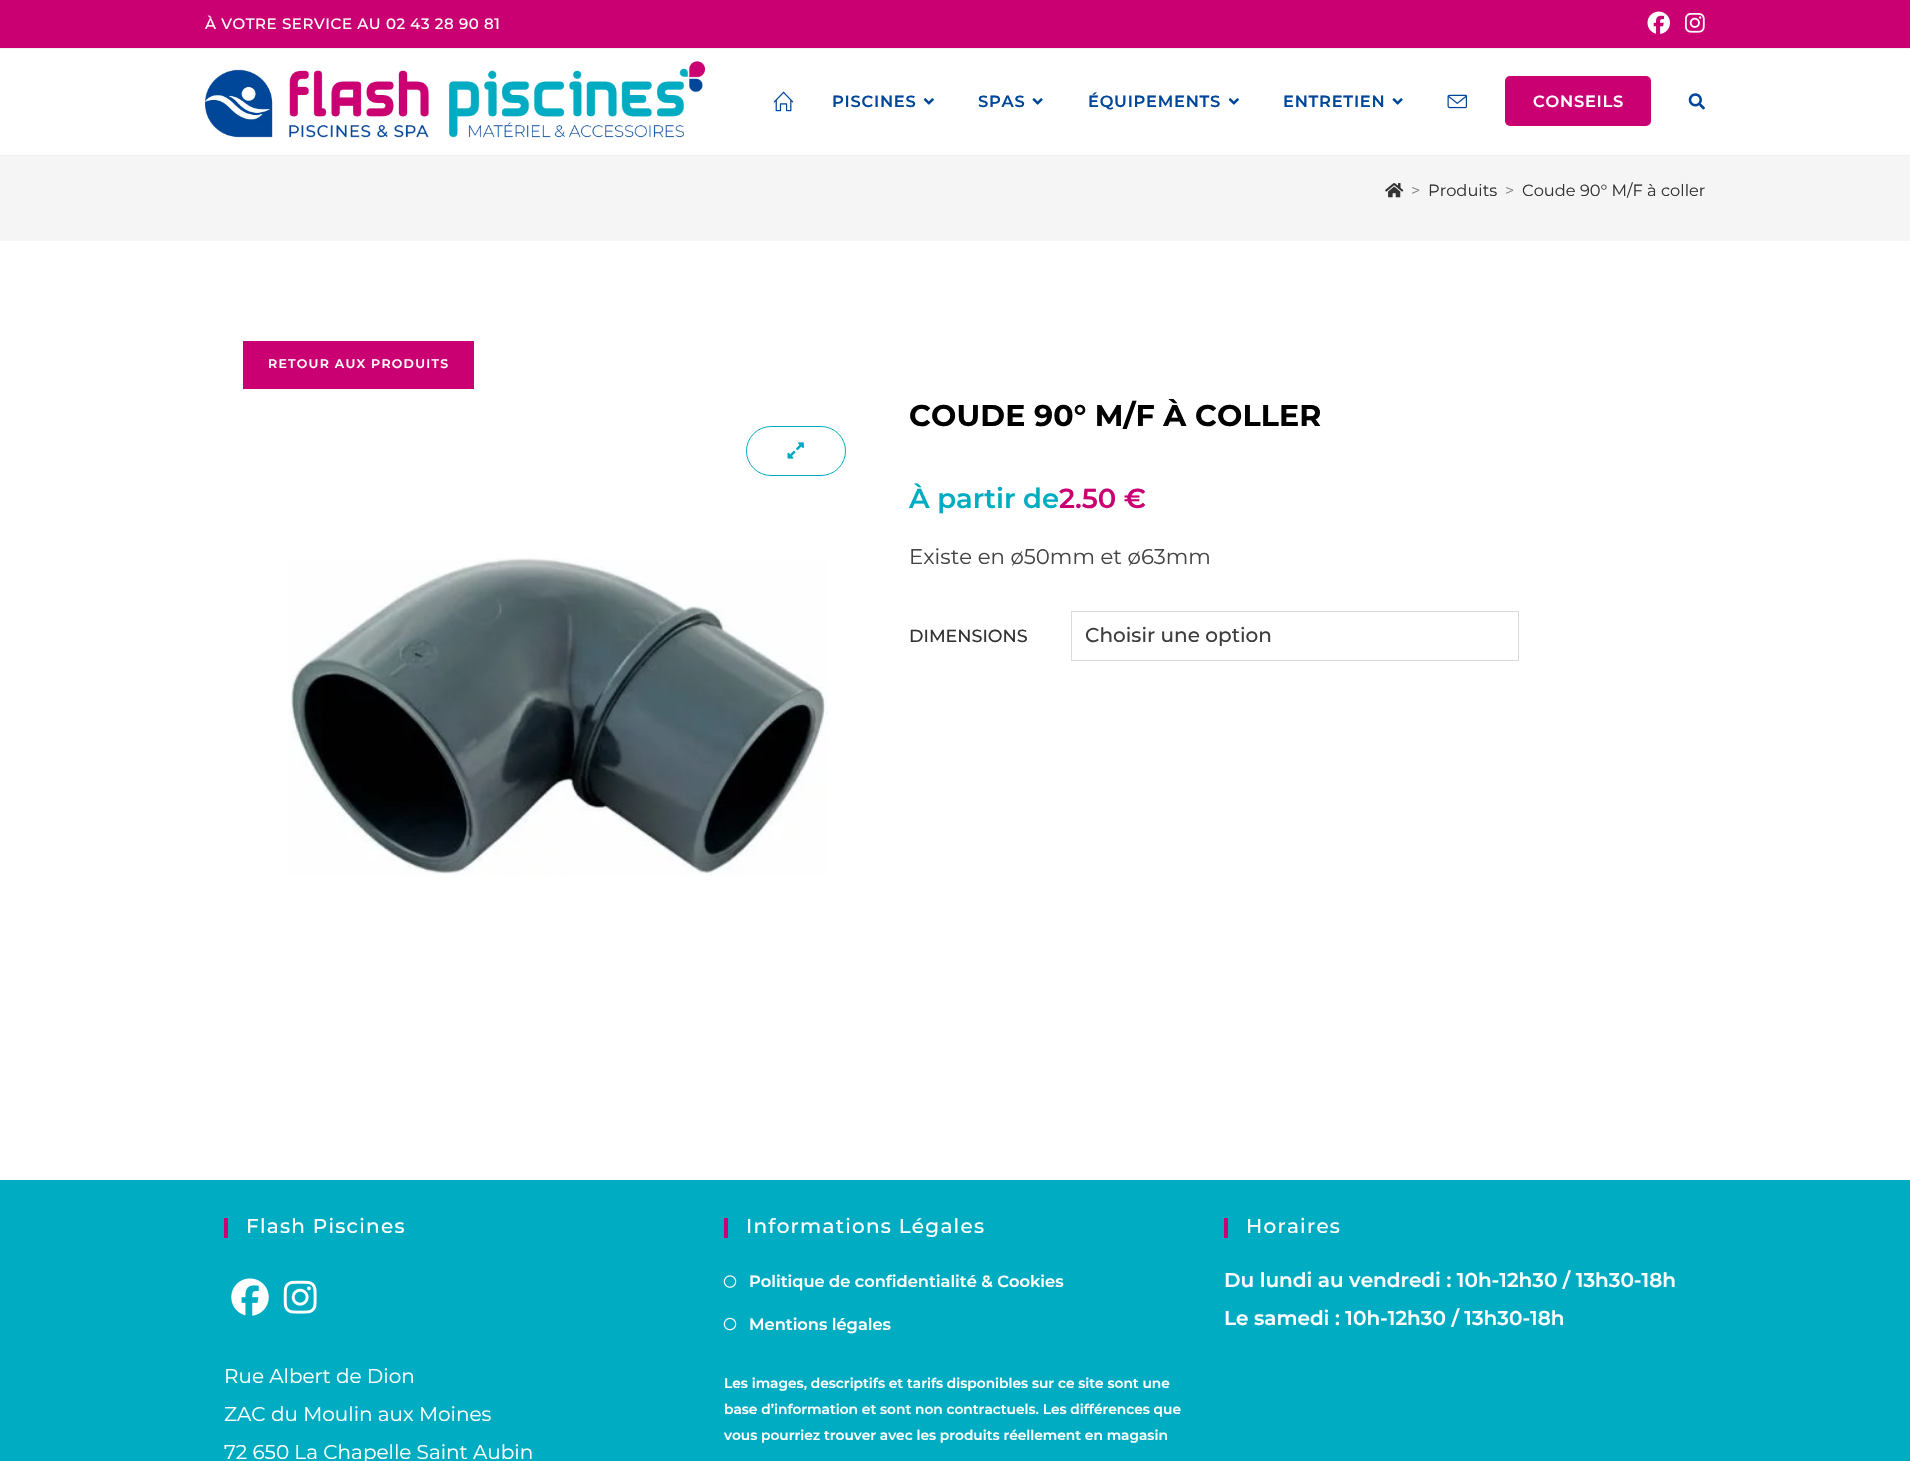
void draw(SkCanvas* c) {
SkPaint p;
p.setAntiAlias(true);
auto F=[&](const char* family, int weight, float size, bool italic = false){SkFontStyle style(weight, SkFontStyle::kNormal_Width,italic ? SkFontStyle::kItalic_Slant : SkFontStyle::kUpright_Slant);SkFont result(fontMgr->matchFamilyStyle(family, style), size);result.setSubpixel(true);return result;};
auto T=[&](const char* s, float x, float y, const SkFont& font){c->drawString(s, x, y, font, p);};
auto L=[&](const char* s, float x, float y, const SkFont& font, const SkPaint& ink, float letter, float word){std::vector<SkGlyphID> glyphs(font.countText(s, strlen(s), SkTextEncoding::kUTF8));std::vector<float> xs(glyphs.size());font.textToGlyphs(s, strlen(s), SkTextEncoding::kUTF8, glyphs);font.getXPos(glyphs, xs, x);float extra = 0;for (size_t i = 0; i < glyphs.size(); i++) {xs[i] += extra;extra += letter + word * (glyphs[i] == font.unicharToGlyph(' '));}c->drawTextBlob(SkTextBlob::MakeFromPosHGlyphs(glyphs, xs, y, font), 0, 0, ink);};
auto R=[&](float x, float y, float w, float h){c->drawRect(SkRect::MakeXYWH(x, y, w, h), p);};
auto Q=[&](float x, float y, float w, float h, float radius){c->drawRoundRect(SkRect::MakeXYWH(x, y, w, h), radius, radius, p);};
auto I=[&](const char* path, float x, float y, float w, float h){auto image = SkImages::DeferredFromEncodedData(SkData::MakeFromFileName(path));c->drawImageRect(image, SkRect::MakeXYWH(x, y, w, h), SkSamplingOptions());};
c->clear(0xffffffff);
p.setColor(0xffca0072);
R(0,0,1910,48);
p.setColor(0xfff1f1f1);
R(0,48,1910,1);
auto f1 = F("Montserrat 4",100,15);
p.setColor(0xffffffff);
L("À VOTRE SERVICE AU 02 43 28 90 81",205,29,f1,p,.6,0);
I("1.png",1647,11,23,23);
I("2.png",1685,13,20,20);
p.setColor(0xfff1f1f1);
R(0,155,1910,1);
I("3.png",205,61,500,77);
I("4.png",773,91,21,21);
auto f2 = F("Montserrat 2",100,16.25);
p.setColor(0xff004699);
L("PISCINES",832,107,f2,p,.75,0);
I("5.png",923,98,11,7);
L("SPAS",978,107,f2,p,.75,0);
I("6.png",1032,98,11,7);
L("ÉQUIPEMENTS",1088,107,f2,p,.75,0);
I("5.png",1228,98,11,7);
L("ENTRETIEN",1283,107,f2,p,.75,0);
I("6.png",1392,98,11,7);
I("7.png",1447,94,20,15);
p.setColor(0xffca0072);
Q(1505,76,146,50,5);
p.setColor(0xffffffff);
L("CONSEILS",1533,107,f2,p,.75,0);
I("8.png",1688,93,17,17);
p.setColor(0xfff5f5f5);
R(0,156,1910,85);
I("9.png",1385,183,19,15);
auto f3 = F("Montserrat",100,16.25);
p.setColor(0xff828282);
T(">",1411,196,f3);
p.setColor(0xff333333);
T("Produits",1428,196,f3);
p.setColor(0xff828282);
T(">",1505,196,f3);
p.setColor(0xff333333);
T("Coude 90° M/F à coller",1522,196,f3);
p.setColor(0xffca0072);
R(243,341,231,48);
auto f4 = F("Montserrat 2",100,12.5);
p.setColor(0xffffffff);
L("RETOUR AUX PRODUITS",268,368,f4,p,1.25,0);
p.setStroke(true);
p.setStrokeWidth(1);
p.setColor(0xff00acc2);
c->drawRoundRect(SkRect::MakeXYWH(746.5,426.5,99,49),24.5,24.5,p);
I("10.png",787,442,17,17);
I("11.png",288,558,540,318);
auto f5 = F("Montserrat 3",100,30);
p.setStroke(false);
p.setColor(0xff000000);
L("COUDE 90° M/F À COLLER",909,426,f5,p,.1,0);
auto f6 = F("Montserrat 2",100,27.5);
p.setColor(0xff00acc2);
T("À partir de",909,508,f6);
p.setColor(0xffca0072);
T("2.50 €",1059,508,f6);
auto f7 = F("Montserrat",100,21.25);
p.setColor(0xff444444);
T("Existe en ø50mm et ø63mm",909,564,f7);
auto f8 = F("Montserrat 4",100,17.5);
p.setColor(0xff333333);
T("DIMENSIONS",909,642,f8);
p.setStroke(true);
p.setColor(0xffddd9d9);
c->drawRect(SkRect::MakeXYWH(1071.5,611.5,447,49),p);
auto f9 = F("Montserrat 4",100,20);
p.setStroke(false);
p.setColor(0xff3e3e3e);
T("Choisir une option",1085,642,f9);
p.setColor(0xff00acc2);
R(0,1180,1910,281);
p.setColor(0xffca0072);
R(224,1218,4,20);
p.setColor(0xffffffff);
L("Flash Piscines",246,1233,f9,p,1.25,0);
I("12.png",231,1278,38,38);
I("13.png",283,1280,34,34);
auto f10 = F("Montserrat",100,20);
T("Rue Albert de Dion",224,1383,f10);
T("ZAC du Moulin aux Moines",224,1421,f10);
T("72 650 La Chapelle Saint Aubin",224,1459,f10);
p.setColor(0xffca0072);
R(724,1218,4,20);
p.setColor(0xffffffff);
L("Informations Légales",746,1233,f9,p,1.25,0);
I("14.png",723,1275,14,13);
T("Politique de confidentialité & Cookies",749,1287,f2);
I("15.png",723,1317,14,14);
T("Mentions légales",749,1330,f2);
auto f11 = F("Montserrat 2",100,13.75);
T("Les images, descriptifs et tarifs disponibles sur ce site sont une",724,1388,f11);
T("base d’information et sont non contractuels. Les différences que",724,1414,f11);
T("vous pourriez trouver avec les produits réellement en magasin",724,1440,f11);
p.setColor(0xffca0072);
R(1224,1218,4,20);
p.setColor(0xffffffff);
L("Horaires",1246,1233,f9,p,1.25,0);
auto f12 = F("Montserrat 2",100,20);
T("Du lundi au vendredi : 10h-12h30 / 13h30-18h",1224,1287,f12);
T("Le samedi : 10h-12h30 / 13h30-18h",1224,1325,f12);
}
